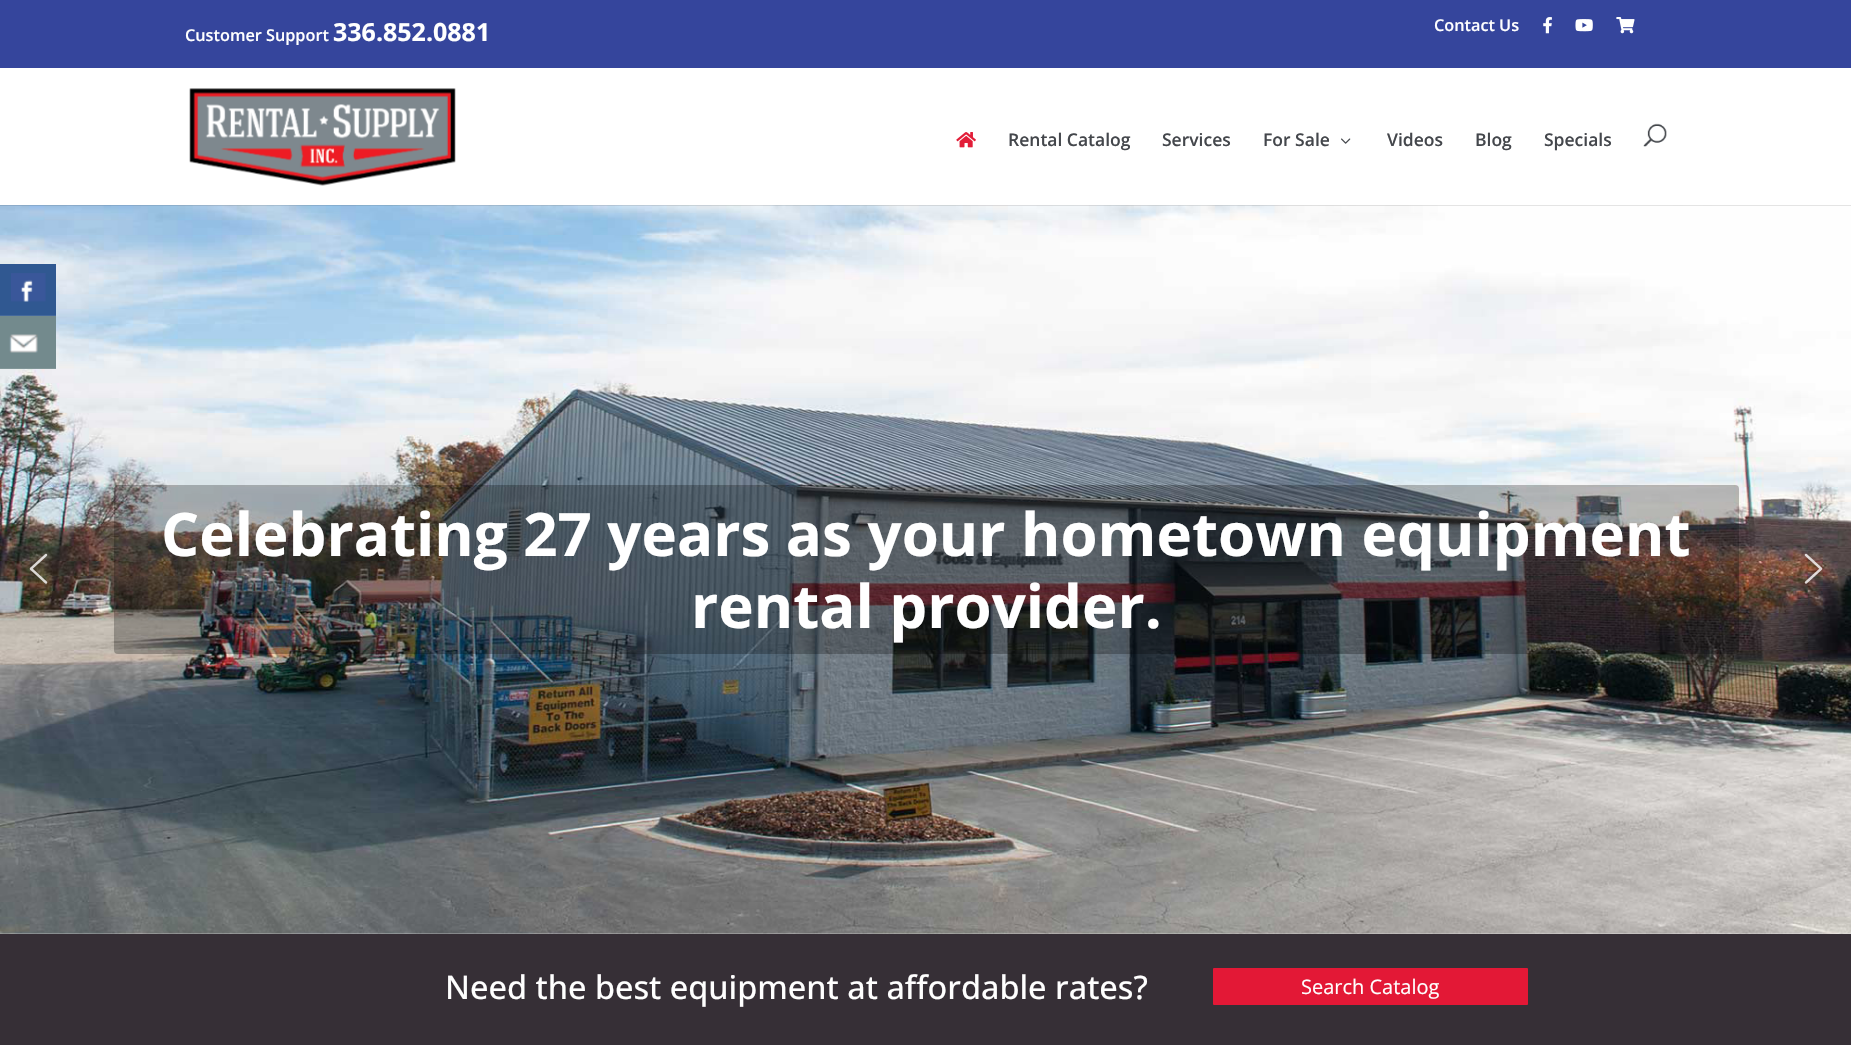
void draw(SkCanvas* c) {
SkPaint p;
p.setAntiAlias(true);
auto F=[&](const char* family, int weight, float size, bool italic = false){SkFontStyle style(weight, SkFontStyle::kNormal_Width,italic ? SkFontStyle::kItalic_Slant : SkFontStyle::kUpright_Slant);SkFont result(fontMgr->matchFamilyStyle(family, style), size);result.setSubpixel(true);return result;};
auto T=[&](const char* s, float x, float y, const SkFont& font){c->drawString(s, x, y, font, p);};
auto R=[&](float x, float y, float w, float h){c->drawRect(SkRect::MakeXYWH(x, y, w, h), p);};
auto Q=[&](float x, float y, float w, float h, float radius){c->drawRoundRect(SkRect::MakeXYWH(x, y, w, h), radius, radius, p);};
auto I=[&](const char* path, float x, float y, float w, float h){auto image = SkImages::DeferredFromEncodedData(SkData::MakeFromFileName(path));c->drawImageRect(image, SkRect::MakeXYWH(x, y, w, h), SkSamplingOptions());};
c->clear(0xffffffff);
I("11.png",0,205,1851,729);
p.setColor(0xff305891);
R(0,264,56,51);
p.setColor(0xff45699c);
R(0,315,56,1);
I("1.png",11,273,35,29);
p.setColor(0xff738a8d);
R(0,316,56,52);
p.setColor(0xff819698);
R(0,368,56,1);
I("2.png",9,334,29,19);
p.setColor(0xff35459c);
R(0,0,1851,68);
auto f1 = F("Open Sans",600,16.25);
p.setColor(0xffffffff);
T("Customer Support",185,41,f1);
auto f2 = F("Open Sans",700,25);
T("336.852.0881",333,41,f2);
T("Contact Us",1434,31,f1);
I("3.png",1543,17,9,17);
I("4.png",1575,19,18,13);
I("5.png",1616,17,19,17);
p.setColor(0x1a000000);
R(0,205,1851,1);
I("6.png",189,88,267,98);
I("7.png",956,132,20,16);
auto f3 = F("Open Sans",600,17.5);
p.setColor(0xff44474c);
T("Rental Catalog",1008,146,f3);
T("Services",1162,146,f3);
T("For Sale",1263,146,f3);
I("8.png",1341,138,10,6);
T("Videos",1387,146,f3);
T("Blog",1475,146,f3);
T("Specials",1544,146,f3);
I("9.png",1643,123,24,24);
I("10.png",29,553,19,31);
p.setColor(0x42000000);
Q(114,485,1625,169,4);
auto f4 = F("Open Sans",700,60);
p.setColor(0xffffffff);
T("Celebrating 27 years as your hometown equipment",161,556,f4);
T("rental provider.",691,628,f4);
I("12.png",1804,553,19,31);
p.setColor(0xff362f36);
R(0,934,1851,111);
auto f5 = F("Open Sans",500,32.5);
p.setColor(0xffffffff);
T("Need the best equipment at affordable rates?",445,999,f5);
p.setColor(0xffe31836);
Q(1213,968,315,37,1);
auto f6 = F("Open Sans",400,20);
p.setColor(0xffffffff);
T("Search Catalog",1301,994,f6);
}
